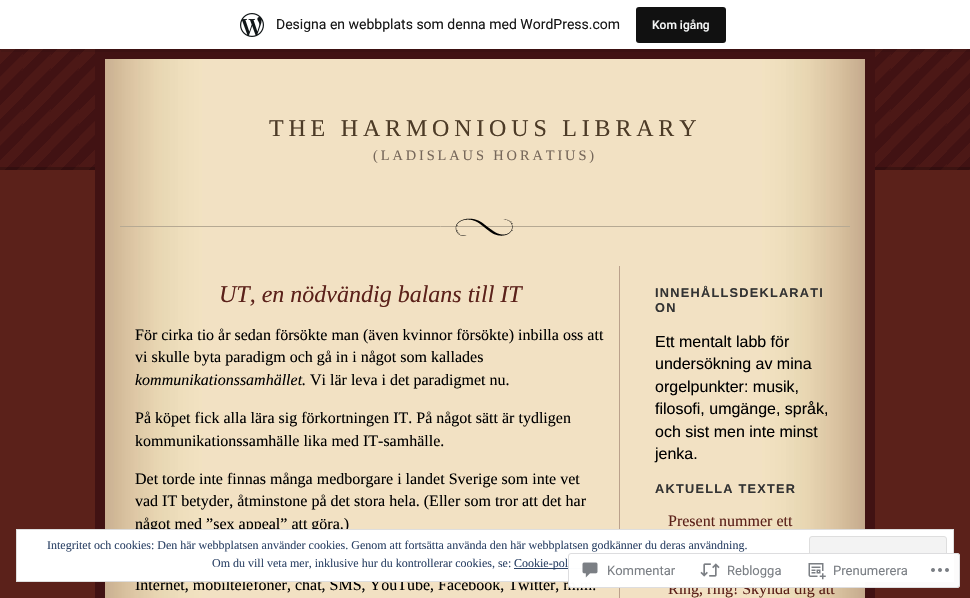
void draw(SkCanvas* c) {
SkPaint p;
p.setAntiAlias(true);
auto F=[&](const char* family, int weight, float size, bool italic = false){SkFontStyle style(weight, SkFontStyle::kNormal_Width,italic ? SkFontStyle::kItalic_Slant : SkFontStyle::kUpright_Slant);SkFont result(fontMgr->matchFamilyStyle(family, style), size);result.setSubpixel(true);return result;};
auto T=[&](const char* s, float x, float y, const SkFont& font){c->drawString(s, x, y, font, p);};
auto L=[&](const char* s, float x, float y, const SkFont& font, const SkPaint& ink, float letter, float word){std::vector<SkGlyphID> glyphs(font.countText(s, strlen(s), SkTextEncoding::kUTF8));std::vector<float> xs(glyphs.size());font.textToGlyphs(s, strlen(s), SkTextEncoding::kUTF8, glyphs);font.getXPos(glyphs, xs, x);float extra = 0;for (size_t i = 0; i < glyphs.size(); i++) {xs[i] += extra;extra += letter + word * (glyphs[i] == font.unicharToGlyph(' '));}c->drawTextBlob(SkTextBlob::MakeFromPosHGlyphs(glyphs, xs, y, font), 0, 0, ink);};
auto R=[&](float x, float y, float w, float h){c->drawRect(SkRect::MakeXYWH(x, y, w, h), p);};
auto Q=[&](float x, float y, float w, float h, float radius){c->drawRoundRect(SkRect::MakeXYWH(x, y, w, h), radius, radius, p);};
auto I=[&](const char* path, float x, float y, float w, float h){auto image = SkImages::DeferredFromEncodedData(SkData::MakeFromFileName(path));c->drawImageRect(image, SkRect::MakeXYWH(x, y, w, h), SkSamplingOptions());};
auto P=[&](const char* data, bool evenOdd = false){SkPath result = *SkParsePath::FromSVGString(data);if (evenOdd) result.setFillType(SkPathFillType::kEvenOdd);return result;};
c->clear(0xff5b211a);
I("1.png",0,49,970,121);
I("3.png",105,59,760,539);
p.setStroke(true);
p.setStrokeWidth(10);
p.setColor(0xff411213);
c->drawRect(SkRect::MakeXYWH(100,54,770,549),p);
p.setStroke(false);
p.setColor(0x14000000);
c->drawPath(P("M1 49v3h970v-49h-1v46z"),p);
p.setColor(0xffffffff);
R(0,0,970,49);
I("2.png",240,13,24,24);
auto f1 = F("Roboto",400,14);
p.setColor(0xff171717);
T("Designa en webbplats som denna med WordPress.com",276,29,f1);
p.setColor(0xff111111);
Q(636,7,90,36,3);
auto f2 = F("Roboto",500,12);
p.setColor(0xfff6f7f7);
T("Kom igång",652,29,f2);
I("4.png",120,218,730,18);
auto f3 = F("Liberation Serif",400,24);
p.setColor(0xff4d3b27);
L("THE HARMONIOUS LIBRARY",269,136,f3,p,4.8,0);
auto f4 = F("Liberation Serif",400,14.4);
p.setColor(0xff76675a);
L("(LADISLAUS HORATIUS)",373,160,f4,p,2.9,0);
p.setColor(0xffbba18c);
R(619,266,1,332);
auto f5 = F("Liberation Serif",400,24,true);
p.setColor(0xff5b211a);
T("UT, en nödvändig balans till IT",219,302,f5);
auto f6 = F("Liberation Serif",400,16);
p.setColor(0xff000000);
T("För cirka tio år sedan försökte man (även kvinnor försökte) inbilla oss att",135,340,f6);
T("vi skulle byta paradigm och gå in i något som kallades",135,362,f6);
auto f7 = F("Liberation Serif",400,16,true);
T("kommunikationssamhället.",135,385,f7);
T("Vi lär leva i det paradigmet nu.",310,385,f6);
T("På köpet fick alla lära sig förkortningen IT. På något sätt är tydligen",135,423,f6);
T("kommunikationssamhälle lika med IT-samhälle.",135,446,f6);
T("Det torde inte finnas många medborgare i landet Sverige som inte vet",135,484,f6);
T("vad IT betyder, åtminstone på det stora hela. (Eller som tror att det har",135,506,f6);
T("något med ”sex appeal” att göra.)",135,529,f6);
T("Internet, mobiltelefoner, chat, SMS, YouTube, Facebook, Twitter, m.m.",135,590,f6);
auto f8 = F("Liberation Sans",700,12.75);
p.setColor(0xff333333);
L("INNEHÅLLSDEKLARATI",655,297,f8,p,1.25,0);
L("ON",655,312,f8,p,1.25,0);
auto f9 = F("Liberation Sans",400,16);
p.setColor(0xff000000);
T("Ett mentalt labb för",655,347,f9);
T("undersökning av mina",655,369,f9);
T("orgelpunkter: musik,",655,392,f9);
T("filosofi, umgänge, språk,",655,414,f9);
T("och sist men inte minst",655,437,f9);
T("jenka.",655,459,f9);
p.setColor(0xff333333);
L("AKTUELLA TEXTER",655,493,f8,p,1.25,0);
p.setColor(0xff5b211a);
T("Present nummer ett",668,526,f6);
T("Ring, ring! Skynda dig att",668,594,f6);
p.setColor(0xffffffff);
c->drawRect(SkRect::MakeXYWH(16.5,529.5,937,52),p);
p.setStroke(true);
p.setStrokeWidth(1);
p.setColor(0xffdedede);
c->drawRect(SkRect::MakeXYWH(16.5,529.5,937,52),p);
auto f10 = F("Liberation Serif",400,12);
p.setStroke(false);
p.setColor(0xff2e4467);
T("Integritet och cookies: Den här webbplatsen använder cookies. Genom att fortsätta använda den här webbplatsen godkänner du deras användning.",47,549,f10);
p.setColor(0xfff3f3f3);
c->drawRoundRect(SkRect::MakeXYWH(809.5,536.5,137,38),2.5,2.5,p);
p.setStroke(true);
p.setColor(0xffdedede);
c->drawRoundRect(SkRect::MakeXYWH(809.5,536.5,137,38),2.5,2.5,p);
p.setStroke(false);
p.setColor(0xff2e4467);
T("Om du vill veta mer, inklusive hur du kontrollerar cookies, se:",212,567,f10);
R(514,568,69,1);
T("Cookie-pol",514,567,f10);
p.setColor(0xfaffffff);
Q(568,553,392,35,3);
p.setStroke(true);
p.setColor(0xfadcdcde);
c->drawRoundRect(SkRect::MakeXYWH(568.5,553.5,391,34),2.5,2.5,p);
I("5.png",582,562,16,16);
auto f11 = F("Roboto",400,13);
p.setStroke(false);
p.setColor(0xff7b7f85);
T("Kommentar",607,575,f11);
I("6.png",700,563,20,14);
T("Reblogga",727,575,f11);
I("7.png",808,563,18,17);
T("Prenumerera",833,575,f11);
I("8.png",931,568,18,4);
}
